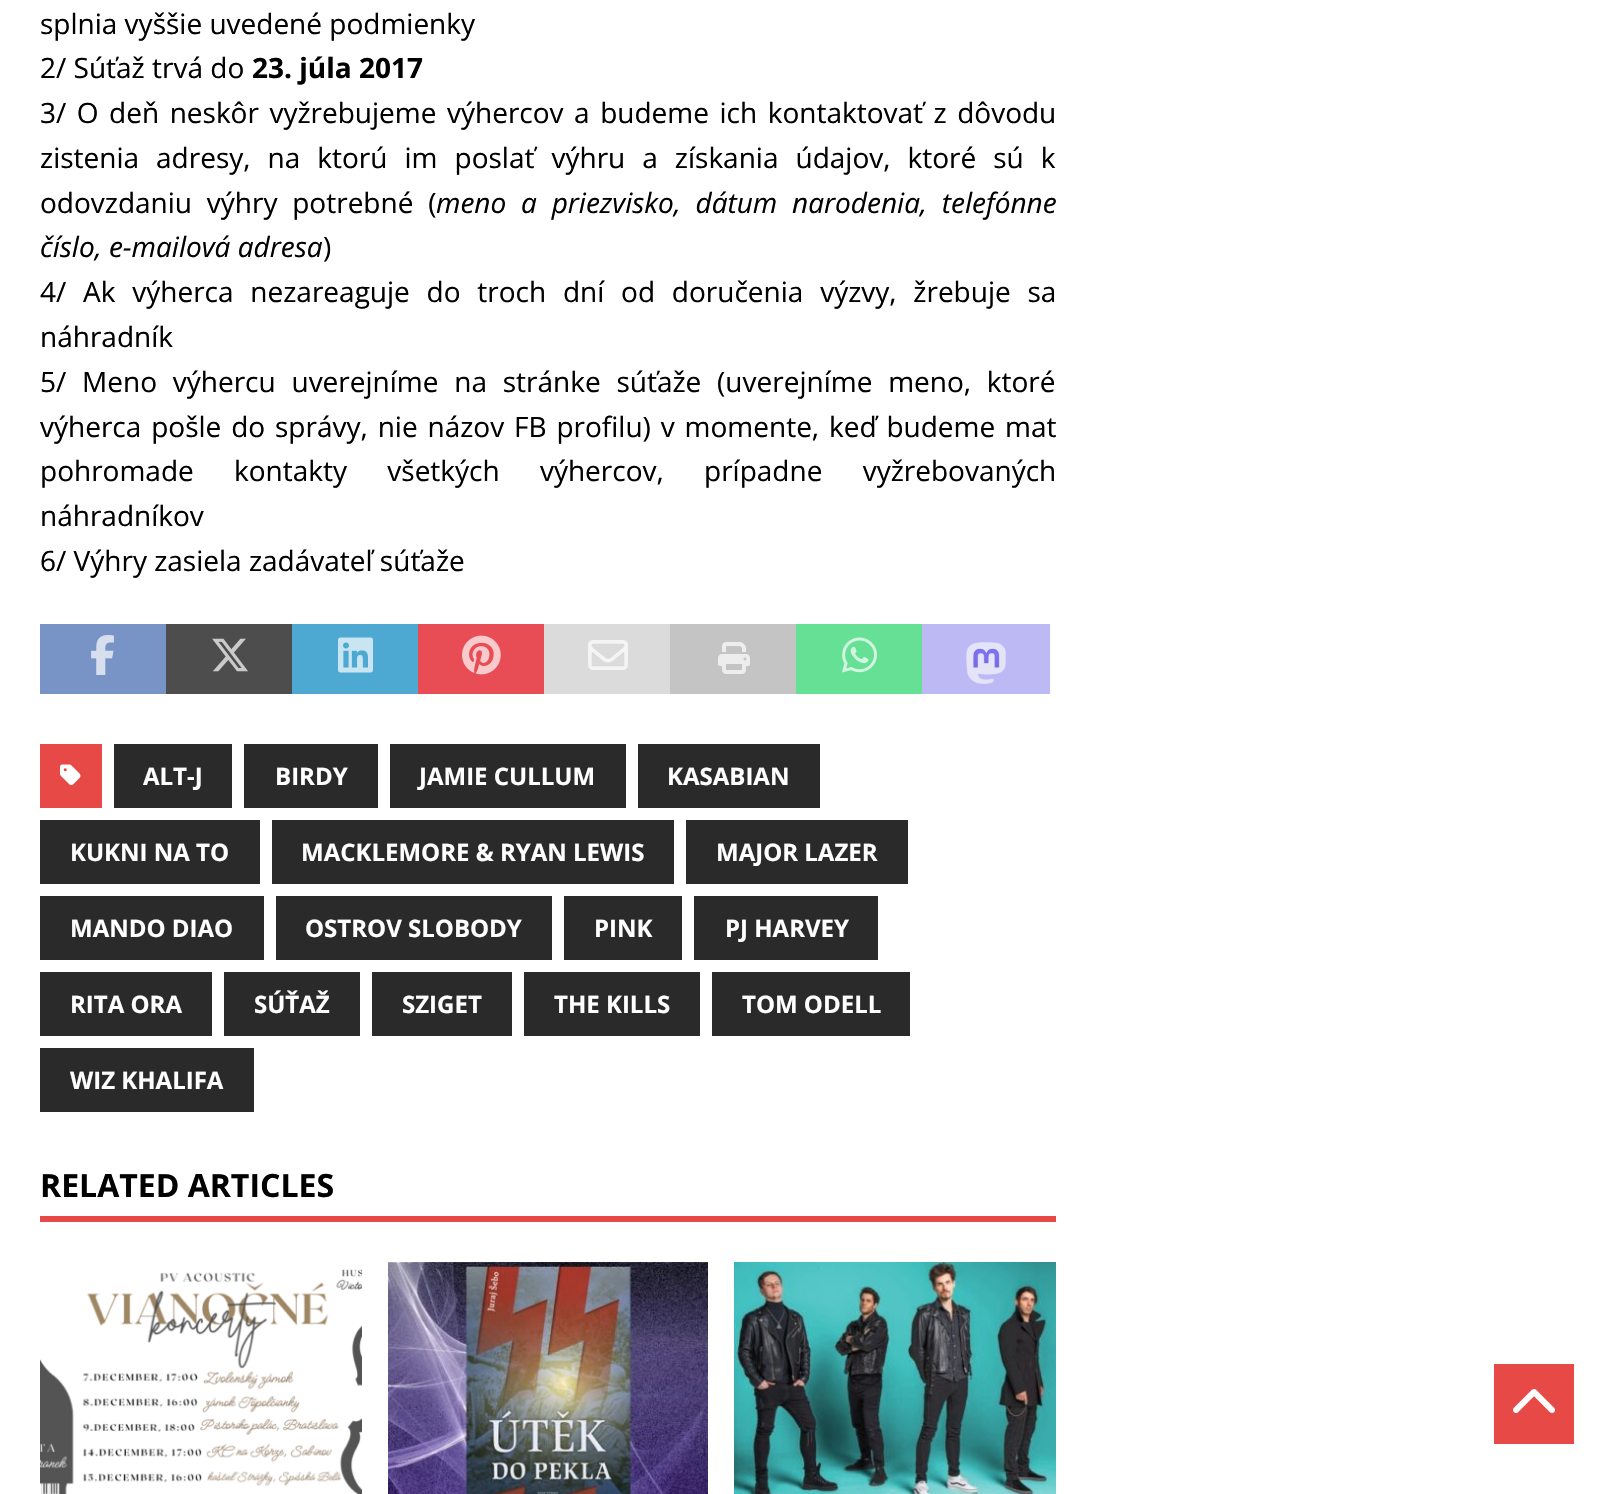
void draw(SkCanvas* c) {
SkPaint p;
p.setAntiAlias(true);
auto F=[&](const char* family, int weight, float size, bool italic = false){SkFontStyle style(weight, SkFontStyle::kNormal_Width,italic ? SkFontStyle::kItalic_Slant : SkFontStyle::kUpright_Slant);SkFont result(fontMgr->matchFamilyStyle(family, style), size);result.setSubpixel(true);return result;};
auto T=[&](const char* s, float x, float y, const SkFont& font){c->drawString(s, x, y, font, p);};
auto L=[&](const char* s, float x, float y, const SkFont& font, const SkPaint& ink, float letter, float word){std::vector<SkGlyphID> glyphs(font.countText(s, strlen(s), SkTextEncoding::kUTF8));std::vector<float> xs(glyphs.size());font.textToGlyphs(s, strlen(s), SkTextEncoding::kUTF8, glyphs);font.getXPos(glyphs, xs, x);float extra = 0;for (size_t i = 0; i < glyphs.size(); i++) {xs[i] += extra;extra += letter + word * (glyphs[i] == font.unicharToGlyph(' '));}c->drawTextBlob(SkTextBlob::MakeFromPosHGlyphs(glyphs, xs, y, font), 0, 0, ink);};
auto R=[&](float x, float y, float w, float h){c->drawRect(SkRect::MakeXYWH(x, y, w, h), p);};
auto I=[&](const char* path, float x, float y, float w, float h){auto image = SkImages::DeferredFromEncodedData(SkData::MakeFromFileName(path));c->drawImageRect(image, SkRect::MakeXYWH(x, y, w, h), SkSamplingOptions());};
c->clear(0xffffffff);
auto f1 = F("Open Sans",400,28);
p.setColor(0xff000000);
T("splnia vyššie uvedené podmienky",40,34,f1);
T("2/ Súťaž trvá do",40,78,f1);
auto f2 = F("Open Sans",700,28);
T("23. júla 2017",252,78,f2);
L("3/ O deň neskôr vyžrebujeme výhercov a budeme ich kontaktovať z dôvodu",40,123,f1,p,0,3.25);
L("zistenia adresy, na ktorú im poslať výhru a získania údajov, ktoré sú k",40,168,f1,p,0,9.75);
L("odovzdaniu výhry potrebné (",40,213,f1,p,0,7.5);
auto f3 = F("Open Sans",400,28,true);
L("meno a priezvisko, dátum narodenia, telefónne",436,213,f3,p,0,7.5);
T("číslo, e-mailová adresa",40,257,f3);
T(")",323,257,f1);
L("4/ Ak výherca nezareaguje do troch dní od doručenia výzvy, žrebuje sa",40,302,f1,p,0,9.5);
T("náhradník",40,347,f1);
L("5/ Meno výhercu uverejníme na stránke súťaže (uverejníme meno, ktoré",40,392,f1,p,0,8.5);
c->save();
c->clipRect(SkRect::MakeXYWH(40,0,1016,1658));
L("výherca pošle do správy, nie názov FB profilu) v momente, keď budeme mať",40,437,f1,p,0,2.6);
c->restore();
L("pohromade kontakty všetkých výhercov, prípadne vyžrebovaných",40,481,f1,p,0,33);
T("náhradníkov",40,526,f1);
T("6/ Výhry zasiela zadávateľ súťaže",40,571,f1);
p.setColor(0xff7893c6);
R(40,624,126,70);
I("1.png",91,635,23,40);
p.setColor(0xff4d4d4d);
R(166,624,126,70);
I("2.png",212,638,36,34);
p.setColor(0xff4da9d2);
R(292,624,126,70);
I("3.png",338,637,35,36);
p.setColor(0xffe84d56);
R(418,624,126,70);
I("4.png",462,635,39,40);
p.setColor(0xffdbdbdb);
R(544,624,126,70);
I("5.png",588,640,40,30);
p.setColor(0xffc4c4c4);
R(670,624,126,70);
I("6.png",718,642,32,32);
p.setColor(0xff66e094);
R(796,624,126,70);
I("7.png",842,637,35,36);
p.setColor(0xffbdb9f5);
R(922,624,128,70);
I("8.png",966,642,40,42);
p.setColor(0xffe64946);
R(40,744,62,64);
I("9.png",60,764,21,21);
p.setColor(0xff2a2a2a);
R(114,744,118,64);
auto f4 = F("Open Sans",700,24);
p.setColor(0xffffffff);
T("ALT-J",143,785,f4);
p.setColor(0xff2a2a2a);
R(244,744,134,64);
p.setColor(0xffffffff);
T("BIRDY",275,785,f4);
p.setColor(0xff2a2a2a);
R(390,744,236,64);
p.setColor(0xffffffff);
T("JAMIE CULLUM",419,785,f4);
p.setColor(0xff2a2a2a);
R(638,744,182,64);
p.setColor(0xffffffff);
T("KASABIAN",667,785,f4);
p.setColor(0xff2a2a2a);
R(40,820,220,64);
p.setColor(0xffffffff);
T("KUKNI NA TO",70,861,f4);
p.setColor(0xff2a2a2a);
R(272,820,402,64);
p.setColor(0xffffffff);
T("MACKLEMORE & RYAN LEWIS",301,861,f4);
p.setColor(0xff2a2a2a);
R(686,820,222,64);
p.setColor(0xffffffff);
T("MAJOR LAZER",716,861,f4);
p.setColor(0xff2a2a2a);
R(40,896,224,64);
p.setColor(0xffffffff);
T("MANDO DIAO",70,937,f4);
p.setColor(0xff2a2a2a);
R(276,896,276,64);
p.setColor(0xffffffff);
T("OSTROV SLOBODY",305,937,f4);
p.setColor(0xff2a2a2a);
R(564,896,118,64);
p.setColor(0xffffffff);
T("PINK",594,937,f4);
p.setColor(0xff2a2a2a);
R(694,896,184,64);
p.setColor(0xffffffff);
T("PJ HARVEY",725,937,f4);
p.setColor(0xff2a2a2a);
R(40,972,172,64);
p.setColor(0xffffffff);
T("RITA ORA",70,1013,f4);
p.setColor(0xff2a2a2a);
R(224,972,136,64);
p.setColor(0xffffffff);
T("SÚŤAŽ",254,1013,f4);
p.setColor(0xff2a2a2a);
R(372,972,140,64);
p.setColor(0xffffffff);
T("SZIGET",402,1013,f4);
p.setColor(0xff2a2a2a);
R(524,972,176,64);
p.setColor(0xffffffff);
T("THE KILLS",554,1013,f4);
p.setColor(0xff2a2a2a);
R(712,972,198,64);
p.setColor(0xffffffff);
T("TOM ODELL",742,1013,f4);
p.setColor(0xff2a2a2a);
R(40,1048,214,64);
p.setColor(0xffffffff);
T("WIZ KHALIFA",70,1089,f4);
p.setColor(0xffe64946);
R(40,1216,1016,6);
auto f5 = F("Open Sans",700,32);
p.setColor(0xff000000);
T("RELATED ARTICLES",40,1197,f5);
I("10.png",40,1269,322,225);
I("11.png",388,1262,320,232);
I("12.png",734,1262,322,232);
p.setColor(0xffe64946);
R(1494,1364,80,80);
I("13.png",1513,1389,42,24);
}
